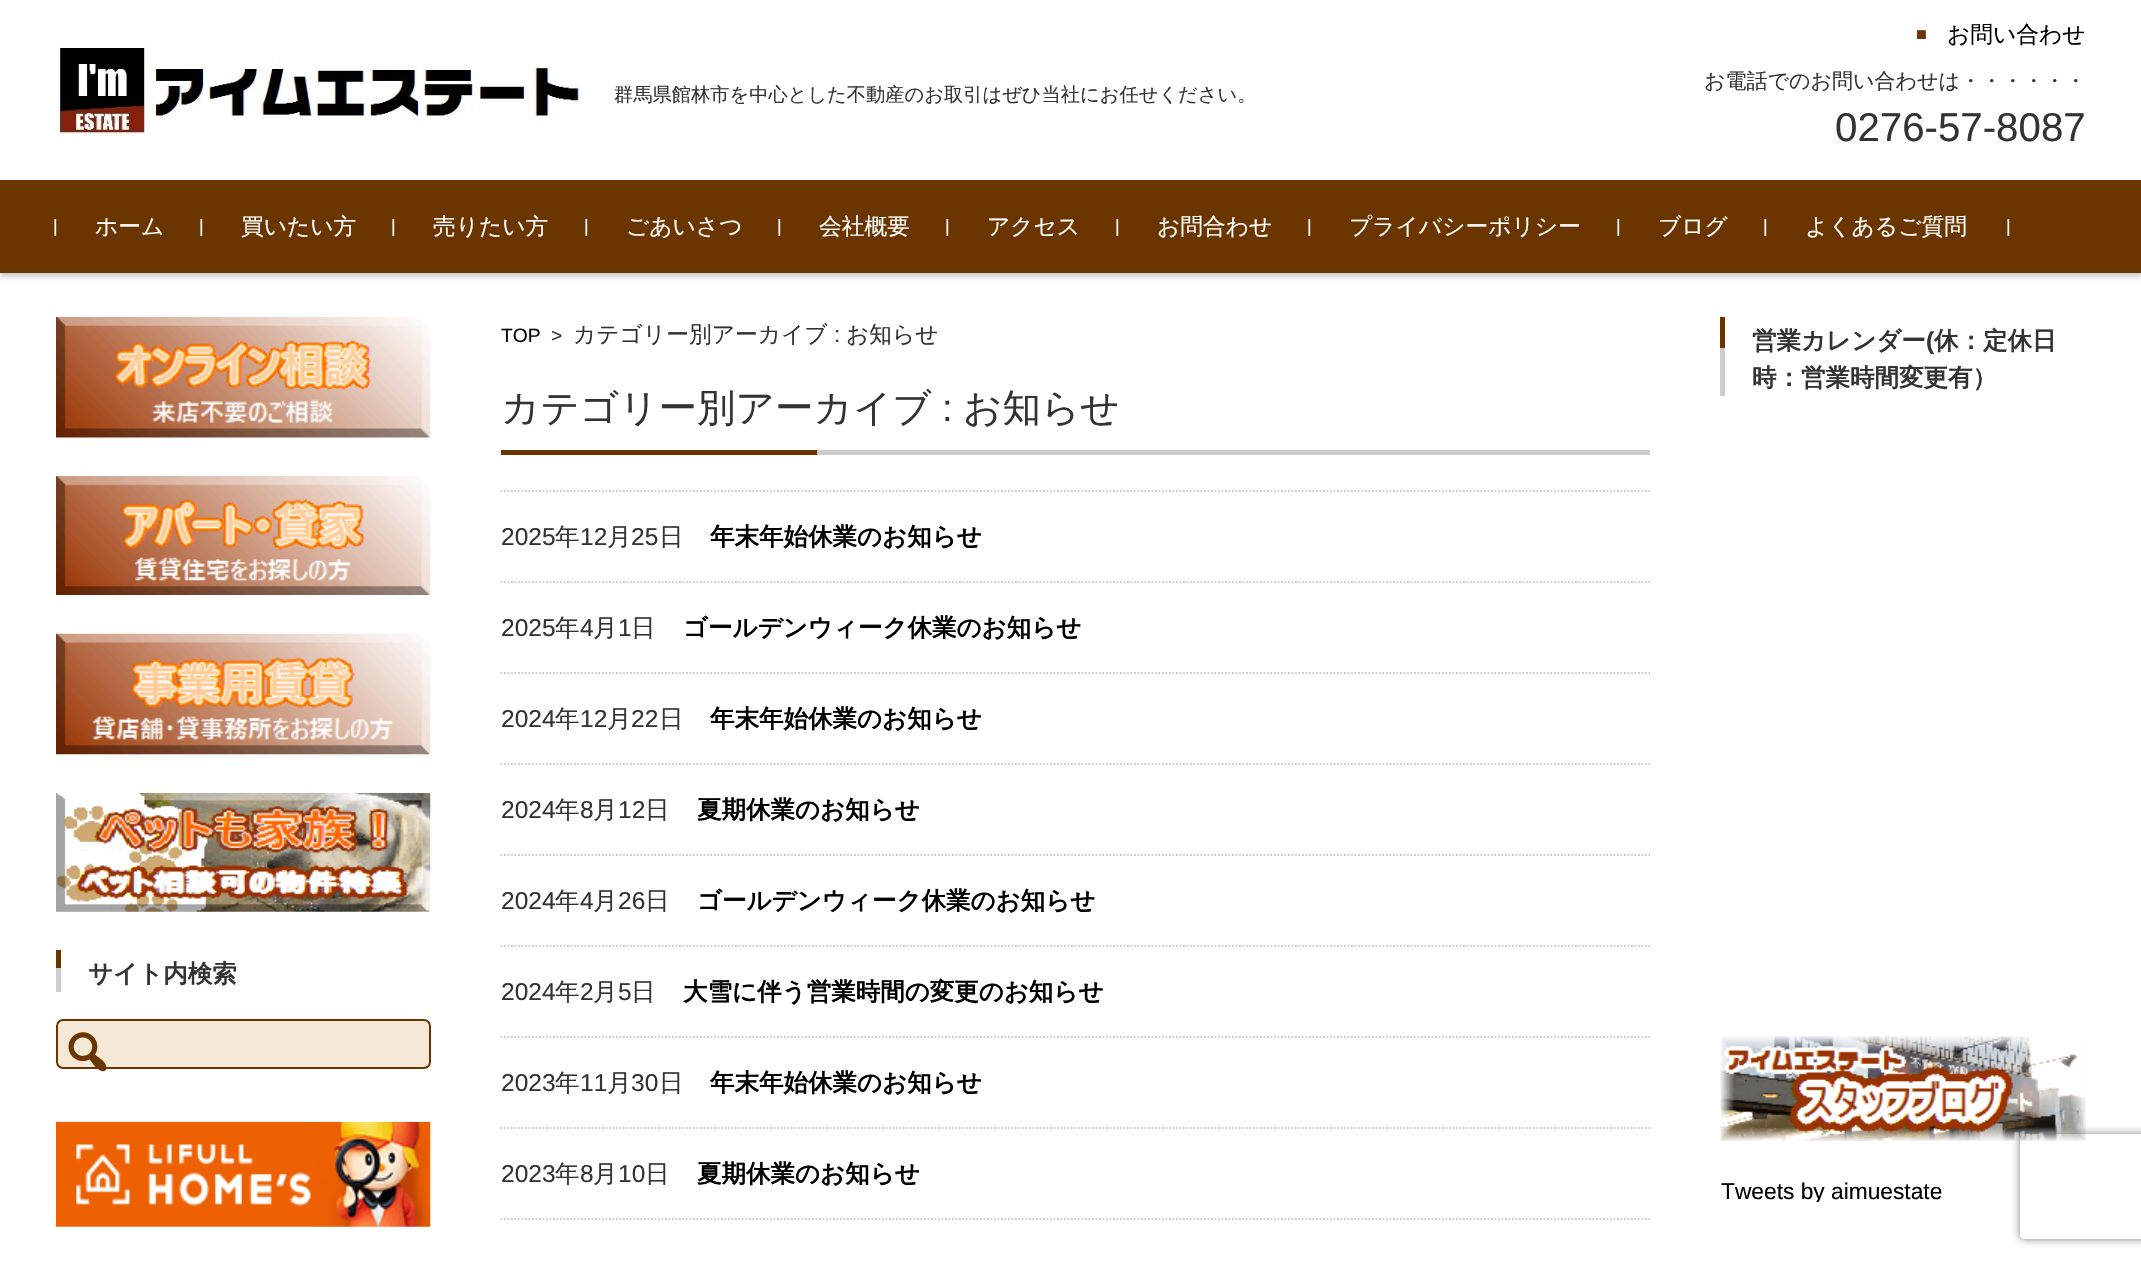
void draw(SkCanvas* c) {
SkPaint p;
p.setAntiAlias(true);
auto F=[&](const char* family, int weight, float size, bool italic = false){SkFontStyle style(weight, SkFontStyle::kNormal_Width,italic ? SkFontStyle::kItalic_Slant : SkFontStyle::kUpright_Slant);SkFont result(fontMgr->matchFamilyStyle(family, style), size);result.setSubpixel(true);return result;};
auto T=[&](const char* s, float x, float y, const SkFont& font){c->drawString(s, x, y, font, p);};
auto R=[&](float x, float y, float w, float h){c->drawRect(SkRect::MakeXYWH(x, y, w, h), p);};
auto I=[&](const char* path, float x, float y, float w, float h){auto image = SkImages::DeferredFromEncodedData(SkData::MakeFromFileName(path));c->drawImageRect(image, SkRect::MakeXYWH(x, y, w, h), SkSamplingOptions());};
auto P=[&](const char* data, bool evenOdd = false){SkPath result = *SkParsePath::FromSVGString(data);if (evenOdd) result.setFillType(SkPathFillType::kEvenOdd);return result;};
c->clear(0xffffffff);
I("1.png",56,46,524,91);
auto f1 = F("WenQuanYi Zen Hei",500,19.25);
p.setColor(0xff333333);
T("群馬県館林市を中心とした不動産のお取引はぜひ当社にお任せください。",614,101,f1);
auto f2 = F("Liberation Sans",400,18);
p.setColor(0xff6b3500);
T("■",1916,40,f2);
auto f3 = F("WenQuanYi Zen Hei",500,22.75);
p.setColor(0xff000000);
T("お問い合わせ",1947,42,f3);
auto f4 = F("WenQuanYi Zen Hei",500,21);
p.setColor(0xff333333);
T("お電話でのお問い合わせは・・・・・・",1704,88,f4);
auto f5 = F("Liberation Sans",400,40.25);
T("0276-57-8087",1835,141,f5);
p.setColor(0x33000000);
p.setMaskFilter(SkMaskFilter::MakeBlur(kNormal_SkBlurStyle, 2.5));
c->drawRect(SkRect::MakeXYWH(0,184,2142,93),p);
p.setMaskFilter(nullptr);
p.setColor(0xff6b3500);
R(0,180,2141,93);
p.setColor(0xffffffff);
T("|",53,232,f2);
T("ホーム",95,234,f3);
T("|",199,232,f2);
T("買いたい方",241,234,f3);
T("|",391,232,f2);
T("売りたい方",433,234,f3);
T("|",584,232,f2);
T("ごあいさつ",626,234,f3);
T("|",777,232,f2);
T("会社概要",819,234,f3);
T("|",945,232,f2);
T("アクセス",987,234,f3);
T("|",1115,232,f2);
T("お問合わせ",1157,234,f3);
T("|",1307,232,f2);
T("プライバシーポリシー",1349,234,f3);
T("|",1616,232,f2);
T("ブログ",1658,234,f3);
T("|",1763,232,f2);
T("よくあるご質問",1805,234,f3);
T("|",2006,232,f2);
I("2.png",56,316,375,122);
I("3.png",56,476,375,119);
I("4.png",56,633,375,122);
I("5.png",56,792,375,120);
p.setColor(0xffcccccc);
R(56,968,5,24);
p.setColor(0xff6b3500);
R(56,950,5,18);
auto f6 = F("WenQuanYi Zen Hei",700,24.5);
p.setColor(0xff333333);
T("サイト内検索",88,982,f6);
p.setColor(0xfff4e9d7);
c->drawRoundRect(SkRect::MakeXYWH(57,1020,373,48),6,6,p);
p.setStroke(true);
p.setStrokeWidth(2);
p.setColor(0xff6b3500);
c->drawRoundRect(SkRect::MakeXYWH(57,1020,373,48),6,6,p);
I("6.png",68,1032,39,40);
I("7.png",56,1121,375,106);
auto f7 = F("Liberation Sans",400,19.25);
p.setStroke(false);
p.setColor(0xff000000);
T("TOP",501,342,f7);
p.setColor(0xff333333);
T(">",551,342,f7);
T("カテゴリー別アーカイブ",573,342,f3);
auto f8 = F("Liberation Sans",400,22.75);
T(":",834,342,f8);
T("お知らせ",846,342,f3);
p.setColor(0xffcccccc);
R(817,450,833,5);
auto f9 = F("WenQuanYi Zen Hei",500,38.5);
p.setColor(0xff333333);
T("カテゴリー別アーカイブ",501,421,f9);
auto f10 = F("Liberation Sans",400,38.5);
T(":",942,421,f10);
T("お知らせ",963,421,f9);
p.setColor(0xff6b3500);
R(501,450,316,5);
p.setStroke(true);
p.setStrokeWidth(1.8);
p.setColor(0xffcccccc);
p.setPathEffect(SkDashPathEffect::Make({{1.75f,1.75f}}, 0));
c->drawPath(P("M500.5 491h1149.5"),p);
p.setPathEffect(nullptr);
auto f11 = F("Liberation Sans",400,24.5);
p.setStroke(false);
p.setColor(0xff333333);
T("2025",501,545,f11);
auto f12 = F("WenQuanYi Zen Hei",500,24.5);
T("年",555,545,f12);
T("12",580,545,f11);
T("月",607,545,f12);
T("25",631,545,f11);
T("日",659,545,f12);
p.setColor(0xff000000);
T("年末年始休業のお知らせ",710,545,f6);
p.setStroke(true);
p.setColor(0xffcccccc);
p.setPathEffect(SkDashPathEffect::Make({{1.75f,1.75f}}, 0));
c->drawPath(P("M500.5 582h1149.5"),p);
p.setPathEffect(nullptr);
p.setStroke(false);
p.setColor(0xff333333);
T("2025",501,636,f11);
T("年",555,636,f12);
T("4",580,636,f11);
T("月",593,636,f12);
T("1",618,636,f11);
T("日",631,636,f12);
p.setColor(0xff000000);
T("ゴールデンウィーク休業のお知らせ",683,636,f6);
p.setStroke(true);
p.setColor(0xffcccccc);
p.setPathEffect(SkDashPathEffect::Make({{1.75f,1.75f}}, 0));
c->drawPath(P("M500.5 673h1149.5"),p);
p.setPathEffect(nullptr);
p.setStroke(false);
p.setColor(0xff333333);
T("2024",501,727,f11);
T("年",555,727,f12);
T("12",580,727,f11);
T("月",607,727,f12);
T("22",631,727,f11);
T("日",659,727,f12);
p.setColor(0xff000000);
T("年末年始休業のお知らせ",710,727,f6);
p.setStroke(true);
p.setColor(0xffcccccc);
p.setPathEffect(SkDashPathEffect::Make({{1.75f,1.75f}}, 0));
c->drawPath(P("M500.5 764h1149.5"),p);
p.setPathEffect(nullptr);
p.setStroke(false);
p.setColor(0xff333333);
T("2024",501,818,f11);
T("年",555,818,f12);
T("8",580,818,f11);
T("月",593,818,f12);
T("12",618,818,f11);
T("日",645,818,f12);
p.setColor(0xff000000);
T("夏期休業のお知らせ",697,818,f6);
p.setStroke(true);
p.setColor(0xffcccccc);
p.setPathEffect(SkDashPathEffect::Make({{1.75f,1.75f}}, 0));
c->drawPath(P("M500.5 855h1149.5"),p);
p.setPathEffect(nullptr);
p.setStroke(false);
p.setColor(0xff333333);
T("2024",501,909,f11);
T("年",555,909,f12);
T("4",580,909,f11);
T("月",593,909,f12);
T("26",618,909,f11);
T("日",645,909,f12);
p.setColor(0xff000000);
T("ゴールデンウィーク休業のお知らせ",697,909,f6);
p.setStroke(true);
p.setColor(0xffcccccc);
p.setPathEffect(SkDashPathEffect::Make({{1.75f,1.75f}}, 0));
c->drawPath(P("M500.5 946h1149.5"),p);
p.setPathEffect(nullptr);
p.setStroke(false);
p.setColor(0xff333333);
T("2024",501,1000,f11);
T("年",555,1000,f12);
T("2",580,1000,f11);
T("月",593,1000,f12);
T("5",618,1000,f11);
T("日",631,1000,f12);
p.setColor(0xff000000);
T("大雪に伴う営業時間の変更のお知らせ",683,1000,f6);
p.setStroke(true);
p.setColor(0xffcccccc);
p.setPathEffect(SkDashPathEffect::Make({{1.75f,1.75f}}, 0));
c->drawPath(P("M500.5 1037h1149.5"),p);
p.setPathEffect(nullptr);
p.setStroke(false);
p.setColor(0xff333333);
T("2023",501,1091,f11);
T("年",555,1091,f12);
T("11",580,1091,f11);
T("月",607,1091,f12);
T("30",631,1091,f11);
T("日",659,1091,f12);
p.setColor(0xff000000);
T("年末年始休業のお知らせ",710,1091,f6);
p.setStroke(true);
p.setColor(0xffcccccc);
p.setPathEffect(SkDashPathEffect::Make({{1.75f,1.75f}}, 0));
c->drawPath(P("M500.5 1128h1149.5"),p);
p.setPathEffect(nullptr);
p.setStroke(false);
p.setColor(0xff333333);
T("2023",501,1182,f11);
T("年",555,1182,f12);
T("8",580,1182,f11);
T("月",593,1182,f12);
T("10",618,1182,f11);
T("日",645,1182,f12);
p.setColor(0xff000000);
T("夏期休業のお知らせ",697,1182,f6);
p.setStroke(true);
p.setColor(0xffcccccc);
p.setPathEffect(SkDashPathEffect::Make({{1.75f,1.75f}}, 0));
c->drawPath(P("M500.5 1219h1149.5"),p);
p.setPathEffect(nullptr);
p.setStroke(false);
R(1720,348,5,48);
p.setColor(0xff6b3500);
R(1720,317,5,31);
p.setColor(0xff333333);
T("営業カレンダー",1752,349,f6);
auto f13 = F("Liberation Sans",700,24.5);
T("(",1926,349,f13);
T("休：定休日",1934,349,f6);
T("時：営業時間変更有）",1752,386,f6);
I("8.png",1720,1036,366,105);
c->save();
c->clipRect(SkRect::MakeXYWH(1720,1180,366,22));
p.setColor(0xff000000);
T("Tweets by aimuestate",1721,1199,f8);
c->restore();
c->save();
c->clipPath(P("M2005 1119h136v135h-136zm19 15h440c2 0 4 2 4 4v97c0 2-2 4-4 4h-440c-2 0-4-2-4-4v-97c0-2 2-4 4-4z",true),true);
p.setColor(0xff808080);
p.setMaskFilter(SkMaskFilter::MakeBlur(kNormal_SkBlurStyle, 4.5));
c->drawRoundRect(SkRect::MakeXYWH(2020,1134,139,105),4,4,p);
p.setMaskFilter(nullptr);
c->restore();
}
